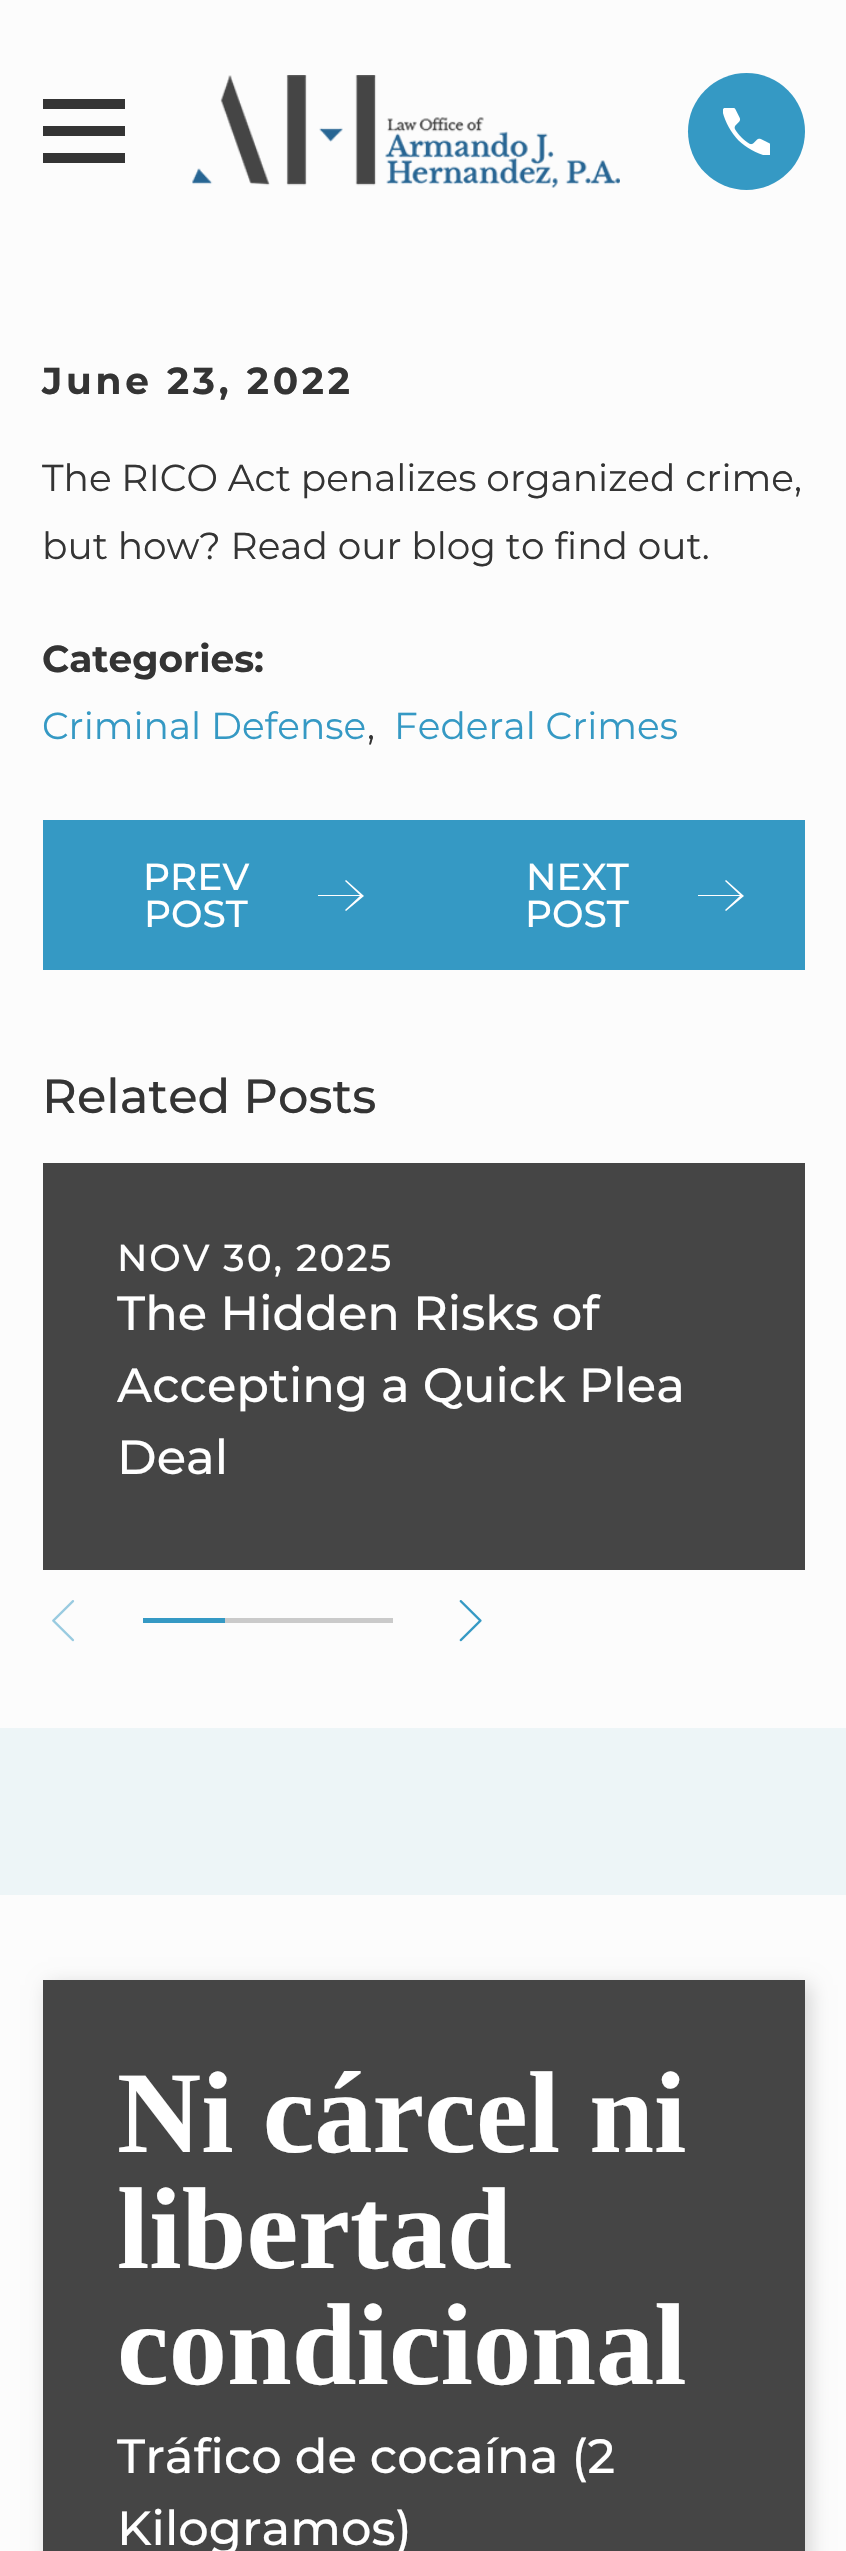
void draw(SkCanvas* c) {
SkPaint p;
p.setAntiAlias(true);
auto F=[&](const char* family, int weight, float size, bool italic = false){SkFontStyle style(weight, SkFontStyle::kNormal_Width,italic ? SkFontStyle::kItalic_Slant : SkFontStyle::kUpright_Slant);SkFont result(fontMgr->matchFamilyStyle(family, style), size);result.setSubpixel(true);return result;};
auto T=[&](const char* s, float x, float y, const SkFont& font){c->drawString(s, x, y, font, p);};
auto L=[&](const char* s, float x, float y, const SkFont& font, const SkPaint& ink, float letter, float word){std::vector<SkGlyphID> glyphs(font.countText(s, strlen(s), SkTextEncoding::kUTF8));std::vector<float> xs(glyphs.size());font.textToGlyphs(s, strlen(s), SkTextEncoding::kUTF8, glyphs);font.getXPos(glyphs, xs, x);float extra = 0;for (size_t i = 0; i < glyphs.size(); i++) {xs[i] += extra;extra += letter + word * (glyphs[i] == font.unicharToGlyph(' '));}c->drawTextBlob(SkTextBlob::MakeFromPosHGlyphs(glyphs, xs, y, font), 0, 0, ink);};
auto R=[&](float x, float y, float w, float h){c->drawRect(SkRect::MakeXYWH(x, y, w, h), p);};
auto I=[&](const char* path, float x, float y, float w, float h){auto image = SkImages::DeferredFromEncodedData(SkData::MakeFromFileName(path));c->drawImageRect(image, SkRect::MakeXYWH(x, y, w, h), SkSamplingOptions());};
auto P=[&](const char* data, bool evenOdd = false){SkPath result = *SkParsePath::FromSVGString(data);if (evenOdd) result.setFillType(SkPathFillType::kEvenOdd);return result;};
c->clear(0xfffcfcfc);
c->save();
c->clipRect(SkRect::MakeXYWH(43,90,82,83));
p.setColor(0xff343434);
c->drawPath(P("M42 99v10h83v-10zm0 27v10h83v-10zm0 27v10h83v-10z"),p);
c->restore();
I("1.png",192,75,428,113);
p.setColor(0xff3599c4);
c->drawCircle(746.5,131.5,58.5,p);
I("2.png",723,108,47,47);
auto f1 = F("Montserrat",700,37.5);
p.setColor(0xff343434);
L("June 23, 2022",42,394,f1,p,3.75,0);
auto f2 = F("Montserrat",400,37.5);
T("The RICO Act penalizes organized crime,",42,491,f2);
T("but how? Read our blog to find out.",42,559,f2);
T("Categories:",42,672,f1);
p.setColor(0xff3599c4);
T("Criminal Defense",42,739,f2);
p.setColor(0xff343434);
T(",",367,739,f2);
p.setColor(0xff3599c4);
T("Federal Crimes",394,739,f2);
R(43,820,762,150);
auto f3 = F("Montserrat",500,37.5);
p.setColor(0xffffffff);
T("PREV",143,890,f3);
T("POST",144,927,f3);
c->drawPath(P("M345 910l1 1l18-15l-18-16l-1 1l15 14h-42v1h42z"),p);
T("NEXT",526,890,f3);
T("POST",525,927,f3);
c->drawPath(P("M725 910l1 1l18-15l-18-16l-1 1l15 14h-42v1h42z"),p);
auto f4 = F("Montserrat",500,48);
p.setColor(0xff343434);
T("Related Posts",42,1113,f4);
p.setColor(0xff454545);
R(43,1163,762,407);
p.setColor(0xffffffff);
L("NOV 30, 2025",117,1271,f3,p,1.9,0);
T("The Hidden Risks of",117,1330,f4);
T("Accepting a Quick Plea",117,1402,f4);
T("Deal",117,1474,f4);
I("3.png",52,1600,23,42);
p.setColor(0xff3599c4);
R(143,1618,82,5);
p.setColor(0xffcacaca);
R(225,1618,168,5);
I("4.png",459,1600,23,42);
p.setColor(0xffedf5f7);
R(0,1728,846,167);
p.setColor(0x29000000);
p.setMaskFilter(SkMaskFilter::MakeBlur(kNormal_SkBlurStyle, 9.5));
c->drawRect(SkRect::MakeXYWH(48,1985,762,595),p);
p.setMaskFilter(nullptr);
p.setColor(0xff454545);
R(43,1980,762,571);
auto f5 = F("Liberation Serif",700,116.5);
p.setColor(0xffffffff);
T("Ni cárcel ni",117,2152,f5);
T("libertad",117,2268,f5);
T("condicional",117,2384,f5);
T("Tráfico de cocaína (2",117,2473,f4);
T("Kilogramos)",117,2545,f4);
}
